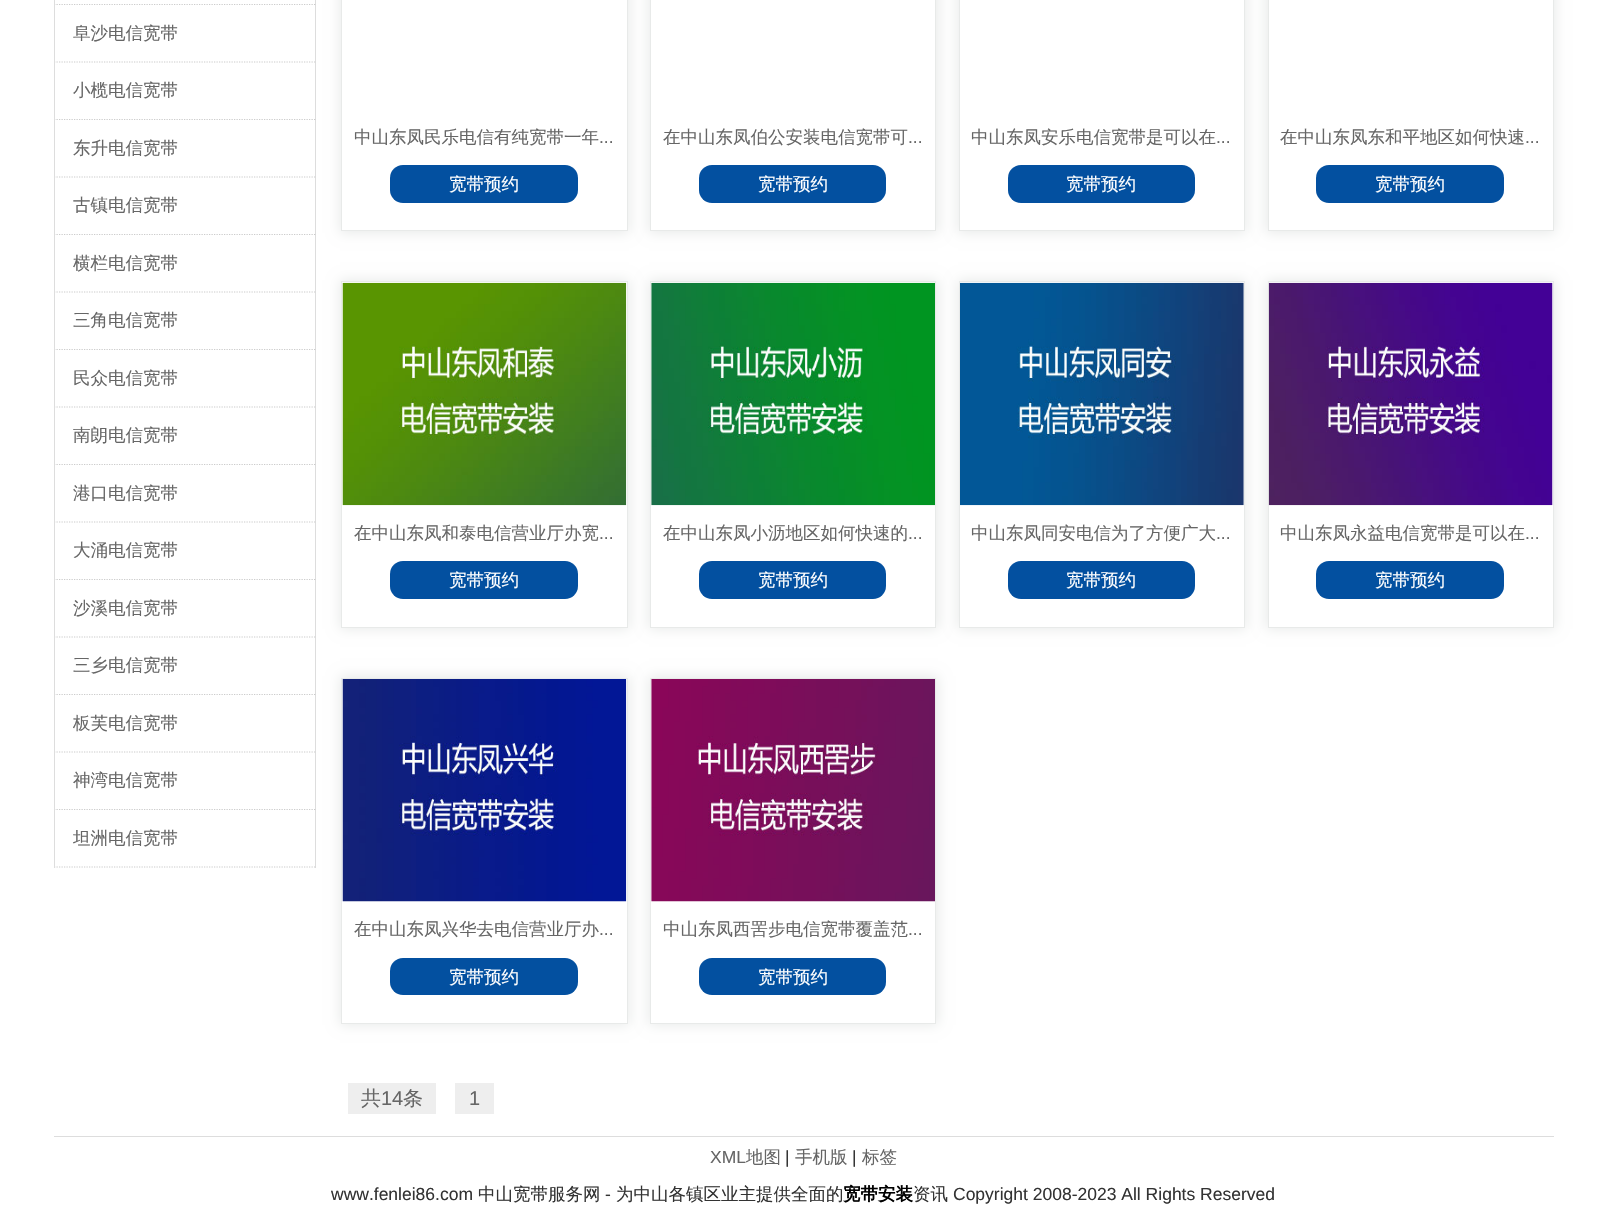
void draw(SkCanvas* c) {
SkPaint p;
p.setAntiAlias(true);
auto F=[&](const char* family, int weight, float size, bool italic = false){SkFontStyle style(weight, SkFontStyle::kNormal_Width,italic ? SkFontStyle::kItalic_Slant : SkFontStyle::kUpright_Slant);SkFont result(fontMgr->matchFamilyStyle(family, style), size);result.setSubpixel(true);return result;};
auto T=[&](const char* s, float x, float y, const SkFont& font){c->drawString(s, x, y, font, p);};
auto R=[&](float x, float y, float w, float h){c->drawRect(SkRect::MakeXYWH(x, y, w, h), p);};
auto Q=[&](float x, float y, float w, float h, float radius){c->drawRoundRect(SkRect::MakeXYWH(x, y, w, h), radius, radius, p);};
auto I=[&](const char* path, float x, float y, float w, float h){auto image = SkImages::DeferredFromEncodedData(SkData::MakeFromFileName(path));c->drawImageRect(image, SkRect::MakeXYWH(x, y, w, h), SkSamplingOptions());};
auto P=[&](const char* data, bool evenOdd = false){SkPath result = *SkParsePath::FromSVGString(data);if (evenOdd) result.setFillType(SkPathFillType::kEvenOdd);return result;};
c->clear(0xffffffff);
p.setColor(0xffdddddd);
R(315,0,1,5);
p.setStroke(true);
p.setStrokeWidth(1.2);
p.setColor(0xffcccccc);
p.setPathEffect(SkDashPathEffect::Make({{1.25f,1.25f}}, 0));
c->drawPath(P("M54 4.5h262"),p);
p.setPathEffect(nullptr);
p.setStroke(false);
p.setColor(0xffdddddd);
R(54,0,1,5);
R(315,5,1,115);
p.setStroke(true);
p.setColor(0xffcccccc);
p.setPathEffect(SkDashPathEffect::Make({{1.25f,1.25f}}, 0));
c->drawPath(P("M54 62h262"),p);
p.setPathEffect(nullptr);
p.setStroke(false);
p.setColor(0xffdddddd);
R(54,5,1,58);
auto f1 = F("WenQuanYi Zen Hei",500,17.5);
p.setColor(0xff666666);
T("阜沙电信宽带",73,39,f1);
p.setStroke(true);
p.setColor(0xffcccccc);
p.setPathEffect(SkDashPathEffect::Make({{1.25f,1.25f}}, 0));
c->drawPath(P("M54 119.5h262"),p);
p.setPathEffect(nullptr);
p.setStroke(false);
p.setColor(0xffdddddd);
R(54,63,1,57);
p.setColor(0xff666666);
T("小榄电信宽带",73,96,f1);
p.setColor(0xffdddddd);
R(315,120,1,115);
p.setStroke(true);
p.setColor(0xffcccccc);
p.setPathEffect(SkDashPathEffect::Make({{1.25f,1.25f}}, 0));
c->drawPath(P("M54 177h262"),p);
p.setPathEffect(nullptr);
p.setStroke(false);
p.setColor(0xffdddddd);
R(54,120,1,58);
p.setColor(0xff666666);
T("东升电信宽带",73,154,f1);
p.setStroke(true);
p.setColor(0xffcccccc);
p.setPathEffect(SkDashPathEffect::Make({{1.25f,1.25f}}, 0));
c->drawPath(P("M54 234.5h262"),p);
p.setPathEffect(nullptr);
p.setStroke(false);
p.setColor(0xffdddddd);
R(54,178,1,57);
p.setColor(0xff666666);
T("古镇电信宽带",73,211,f1);
p.setColor(0xffdddddd);
R(315,235,1,115);
p.setStroke(true);
p.setColor(0xffcccccc);
p.setPathEffect(SkDashPathEffect::Make({{1.25f,1.25f}}, 0));
c->drawPath(P("M54 292h262"),p);
p.setPathEffect(nullptr);
p.setStroke(false);
p.setColor(0xffdddddd);
R(54,235,1,58);
p.setColor(0xff666666);
T("横栏电信宽带",73,269,f1);
p.setStroke(true);
p.setColor(0xffcccccc);
p.setPathEffect(SkDashPathEffect::Make({{1.25f,1.25f}}, 0));
c->drawPath(P("M54 349.5h262"),p);
p.setPathEffect(nullptr);
p.setStroke(false);
p.setColor(0xffdddddd);
R(54,293,1,57);
p.setColor(0xff666666);
T("三角电信宽带",73,326,f1);
p.setColor(0xffdddddd);
R(315,350,1,115);
p.setStroke(true);
p.setColor(0xffcccccc);
p.setPathEffect(SkDashPathEffect::Make({{1.25f,1.25f}}, 0));
c->drawPath(P("M54 407h262"),p);
p.setPathEffect(nullptr);
p.setStroke(false);
p.setColor(0xffdddddd);
R(54,350,1,58);
p.setColor(0xff666666);
T("民众电信宽带",73,384,f1);
p.setStroke(true);
p.setColor(0xffcccccc);
p.setPathEffect(SkDashPathEffect::Make({{1.25f,1.25f}}, 0));
c->drawPath(P("M54 464.5h262"),p);
p.setPathEffect(nullptr);
p.setStroke(false);
p.setColor(0xffdddddd);
R(54,408,1,57);
p.setColor(0xff666666);
T("南朗电信宽带",73,441,f1);
p.setColor(0xffdddddd);
R(315,465,1,115);
p.setStroke(true);
p.setColor(0xffcccccc);
p.setPathEffect(SkDashPathEffect::Make({{1.25f,1.25f}}, 0));
c->drawPath(P("M54 522h262"),p);
p.setPathEffect(nullptr);
p.setStroke(false);
p.setColor(0xffdddddd);
R(54,465,1,58);
p.setColor(0xff666666);
T("港口电信宽带",73,499,f1);
p.setStroke(true);
p.setColor(0xffcccccc);
p.setPathEffect(SkDashPathEffect::Make({{1.25f,1.25f}}, 0));
c->drawPath(P("M54 579.5h262"),p);
p.setPathEffect(nullptr);
p.setStroke(false);
p.setColor(0xffdddddd);
R(54,523,1,57);
p.setColor(0xff666666);
T("大涌电信宽带",73,556,f1);
p.setColor(0xffdddddd);
R(315,580,1,115);
p.setStroke(true);
p.setColor(0xffcccccc);
p.setPathEffect(SkDashPathEffect::Make({{1.25f,1.25f}}, 0));
c->drawPath(P("M54 637h262"),p);
p.setPathEffect(nullptr);
p.setStroke(false);
p.setColor(0xffdddddd);
R(54,580,1,58);
p.setColor(0xff666666);
T("沙溪电信宽带",73,614,f1);
p.setStroke(true);
p.setColor(0xffcccccc);
p.setPathEffect(SkDashPathEffect::Make({{1.25f,1.25f}}, 0));
c->drawPath(P("M54 694.5h262"),p);
p.setPathEffect(nullptr);
p.setStroke(false);
p.setColor(0xffdddddd);
R(54,638,1,57);
p.setColor(0xff666666);
T("三乡电信宽带",73,671,f1);
p.setColor(0xffdddddd);
R(315,695,1,115);
p.setStroke(true);
p.setColor(0xffcccccc);
p.setPathEffect(SkDashPathEffect::Make({{1.25f,1.25f}}, 0));
c->drawPath(P("M54 752h262"),p);
p.setPathEffect(nullptr);
p.setStroke(false);
p.setColor(0xffdddddd);
R(54,695,1,58);
p.setColor(0xff666666);
T("板芙电信宽带",73,729,f1);
p.setStroke(true);
p.setColor(0xffcccccc);
p.setPathEffect(SkDashPathEffect::Make({{1.25f,1.25f}}, 0));
c->drawPath(P("M54 809.5h262"),p);
p.setPathEffect(nullptr);
p.setStroke(false);
p.setColor(0xffdddddd);
R(54,753,1,57);
p.setColor(0xff666666);
T("神湾电信宽带",73,786,f1);
p.setColor(0xffdddddd);
R(315,810,1,58);
p.setStroke(true);
p.setColor(0xffcccccc);
p.setPathEffect(SkDashPathEffect::Make({{1.25f,1.25f}}, 0));
c->drawPath(P("M54 867h262"),p);
p.setPathEffect(nullptr);
p.setStroke(false);
p.setColor(0xffdddddd);
R(54,810,1,58);
p.setColor(0xff666666);
T("坦洲电信宽带",73,844,f1);
p.setColor(0xffe8eae9);
p.setMaskFilter(SkMaskFilter::MakeBlur(kNormal_SkBlurStyle, 6));
c->drawRect(SkRect::MakeXYWH(340,-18,289,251),p);
p.setMaskFilter(nullptr);
p.setColor(0xffffffff);
c->drawRect(SkRect::MakeXYWH(341.5,-.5,286,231),p);
p.setStroke(true);
p.setStrokeWidth(1);
p.setColor(0xffe8eae9);
c->drawRect(SkRect::MakeXYWH(341.5,-.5,286,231),p);
p.setStroke(false);
p.setColor(0xff666666);
T("中山东凤民乐电信有纯宽带一年",354,143,f1);
auto f2 = F("Liberation Sans",400,17.5);
T("...",599,143,f2);
p.setColor(0xff0350a0);
Q(390,165,188,38,13);
p.setColor(0xffffffff);
T("宽带预约",449,190,f1);
c->save();
c->clipPath(P("M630 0h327v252h-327zm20-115h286v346h-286z",true),true);
p.setColor(0xffe8eae9);
p.setMaskFilter(SkMaskFilter::MakeBlur(kNormal_SkBlurStyle, 6));
c->drawRect(SkRect::MakeXYWH(649,-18,289,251),p);
p.setMaskFilter(nullptr);
c->restore();
p.setStroke(true);
c->drawRect(SkRect::MakeXYWH(650.5,-.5,285,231),p);
p.setStroke(false);
p.setColor(0xff666666);
T("在中山东凤伯公安装电信宽带可",663,143,f1);
T("...",908,143,f2);
p.setColor(0xff0350a0);
Q(699,165,187,38,13);
p.setColor(0xffffffff);
T("宽带预约",758,190,f1);
c->save();
c->clipPath(P("M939 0h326v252h-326zm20-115h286v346h-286z",true),true);
p.setColor(0xffe8eae9);
p.setMaskFilter(SkMaskFilter::MakeBlur(kNormal_SkBlurStyle, 6));
c->drawRect(SkRect::MakeXYWH(958,-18,288,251),p);
p.setMaskFilter(nullptr);
c->restore();
p.setStroke(true);
c->drawRect(SkRect::MakeXYWH(959.5,-.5,285,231),p);
p.setStroke(false);
p.setColor(0xff666666);
T("中山东凤安乐电信宽带是可以在",971,143,f1);
T("...",1216,143,f2);
p.setColor(0xff0350a0);
Q(1008,165,187,38,13);
p.setColor(0xffffffff);
T("宽带预约",1066,190,f1);
p.setColor(0xffe8eae9);
p.setMaskFilter(SkMaskFilter::MakeBlur(kNormal_SkBlurStyle, 6));
c->drawRect(SkRect::MakeXYWH(1266,-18,289,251),p);
p.setMaskFilter(nullptr);
p.setColor(0xffffffff);
c->drawRect(SkRect::MakeXYWH(1268.5,-.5,285,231),p);
p.setStroke(true);
p.setColor(0xffe8eae9);
c->drawRect(SkRect::MakeXYWH(1268.5,-.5,285,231),p);
p.setStroke(false);
p.setColor(0xff666666);
T("在中山东凤东和平地区如何快速",1280,143,f1);
T("...",1525,143,f2);
p.setColor(0xff0350a0);
Q(1316,165,188,38,13);
p.setColor(0xffffffff);
T("宽带预约",1375,190,f1);
p.setColor(0xffe8eae9);
p.setMaskFilter(SkMaskFilter::MakeBlur(kNormal_SkBlurStyle, 6));
c->drawRect(SkRect::MakeXYWH(340,280,289,349),p);
p.setMaskFilter(nullptr);
p.setColor(0xffffffff);
c->drawRect(SkRect::MakeXYWH(341.5,281.5,286,346),p);
p.setStroke(true);
p.setColor(0xffe8eae9);
c->drawRect(SkRect::MakeXYWH(341.5,281.5,286,346),p);
I("1.png",342,282,285,224);
p.setStroke(false);
p.setColor(0xff666666);
T("在中山东凤和泰电信营业厅办宽",354,539,f1);
T("...",599,539,f2);
p.setColor(0xff0350a0);
Q(390,561,188,38,13);
p.setColor(0xffffffff);
T("宽带预约",449,586,f1);
p.setColor(0xffe8eae9);
p.setMaskFilter(SkMaskFilter::MakeBlur(kNormal_SkBlurStyle, 6));
c->drawRect(SkRect::MakeXYWH(649,280,289,349),p);
p.setMaskFilter(nullptr);
p.setColor(0xffffffff);
c->drawRect(SkRect::MakeXYWH(650.5,281.5,285,346),p);
p.setStroke(true);
p.setColor(0xffe8eae9);
c->drawRect(SkRect::MakeXYWH(650.5,281.5,285,346),p);
I("2.png",651,282,284,224);
p.setStroke(false);
p.setColor(0xff666666);
T("在中山东凤小沥地区如何快速的",663,539,f1);
T("...",908,539,f2);
p.setColor(0xff0350a0);
Q(699,561,187,38,13);
p.setColor(0xffffffff);
T("宽带预约",758,586,f1);
p.setColor(0xffe8eae9);
p.setMaskFilter(SkMaskFilter::MakeBlur(kNormal_SkBlurStyle, 6));
c->drawRect(SkRect::MakeXYWH(958,280,288,349),p);
p.setMaskFilter(nullptr);
p.setColor(0xffffffff);
c->drawRect(SkRect::MakeXYWH(959.5,281.5,285,346),p);
p.setStroke(true);
p.setColor(0xffe8eae9);
c->drawRect(SkRect::MakeXYWH(959.5,281.5,285,346),p);
I("3.png",960,282,284,224);
p.setStroke(false);
p.setColor(0xff666666);
T("中山东凤同安电信为了方便广大",971,539,f1);
T("...",1216,539,f2);
p.setColor(0xff0350a0);
Q(1008,561,187,38,13);
p.setColor(0xffffffff);
T("宽带预约",1066,586,f1);
p.setColor(0xffe8eae9);
p.setMaskFilter(SkMaskFilter::MakeBlur(kNormal_SkBlurStyle, 6));
c->drawRect(SkRect::MakeXYWH(1266,280,289,349),p);
p.setMaskFilter(nullptr);
p.setColor(0xffffffff);
c->drawRect(SkRect::MakeXYWH(1268.5,281.5,285,346),p);
p.setStroke(true);
p.setColor(0xffe8eae9);
c->drawRect(SkRect::MakeXYWH(1268.5,281.5,285,346),p);
I("4.png",1268,282,285,224);
p.setStroke(false);
p.setColor(0xff666666);
T("中山东凤永益电信宽带是可以在",1280,539,f1);
T("...",1525,539,f2);
p.setColor(0xff0350a0);
Q(1316,561,188,38,13);
p.setColor(0xffffffff);
T("宽带预约",1375,586,f1);
p.setColor(0xffe8eae9);
p.setMaskFilter(SkMaskFilter::MakeBlur(kNormal_SkBlurStyle, 6));
c->drawRect(SkRect::MakeXYWH(340,676,289,349),p);
p.setMaskFilter(nullptr);
p.setColor(0xffffffff);
c->drawRect(SkRect::MakeXYWH(341.5,678.5,286,345),p);
p.setStroke(true);
p.setColor(0xffe8eae9);
c->drawRect(SkRect::MakeXYWH(341.5,678.5,286,345),p);
I("5.png",342,679,285,223);
p.setStroke(false);
p.setColor(0xff666666);
T("在中山东凤兴华去电信营业厅办",354,935,f1);
T("...",599,935,f2);
p.setColor(0xff0350a0);
Q(390,958,188,37,13);
p.setColor(0xffffffff);
T("宽带预约",449,983,f1);
p.setColor(0xffe8eae9);
p.setMaskFilter(SkMaskFilter::MakeBlur(kNormal_SkBlurStyle, 6));
c->drawRect(SkRect::MakeXYWH(649,676,289,349),p);
p.setMaskFilter(nullptr);
p.setColor(0xffffffff);
c->drawRect(SkRect::MakeXYWH(650.5,678.5,285,345),p);
p.setStroke(true);
p.setColor(0xffe8eae9);
c->drawRect(SkRect::MakeXYWH(650.5,678.5,285,345),p);
I("6.png",651,679,284,223);
p.setStroke(false);
p.setColor(0xff666666);
T("中山东凤西罟步电信宽带覆盖范",663,935,f1);
T("...",908,935,f2);
p.setColor(0xff0350a0);
Q(699,958,187,37,13);
p.setColor(0xffffffff);
T("宽带预约",758,983,f1);
p.setColor(0xffeeeeee);
R(348,1083,88,31);
auto f3 = F("WenQuanYi Zen Hei",500,20);
p.setColor(0xff666666);
T("共",361,1105,f3);
auto f4 = F("Liberation Sans",400,20);
T("14",381,1105,f4);
T("条",403,1105,f3);
p.setColor(0xffeeeeee);
R(455,1083,39,31);
p.setColor(0xff666666);
T("1",469,1105,f4);
p.setColor(0xffdddddd);
R(54,1136,1500,1);
p.setColor(0xff666666);
T("XML",710,1163,f2);
T("地图",746,1163,f1);
p.setColor(0xff333333);
T("|",785,1163,f2);
p.setColor(0xff666666);
T("手机版",795,1163,f1);
p.setColor(0xff333333);
T("|",852,1163,f2);
p.setColor(0xff666666);
T("标签",862,1163,f1);
p.setColor(0xff333333);
T("www.fenlei86.com",331,1200,f2);
T("中山宽带服务网",478,1200,f1);
T("-",605,1200,f2);
T("为中山各镇区业主提供全面的",616,1200,f1);
auto f5 = F("WenQuanYi Zen Hei",700,17.5);
p.setColor(0xff000000);
T("宽带安装",843,1200,f5);
p.setColor(0xff333333);
T("资讯",913,1200,f1);
T("Copyright 2008-2023 All Rights Reserved",953,1200,f2);
}
